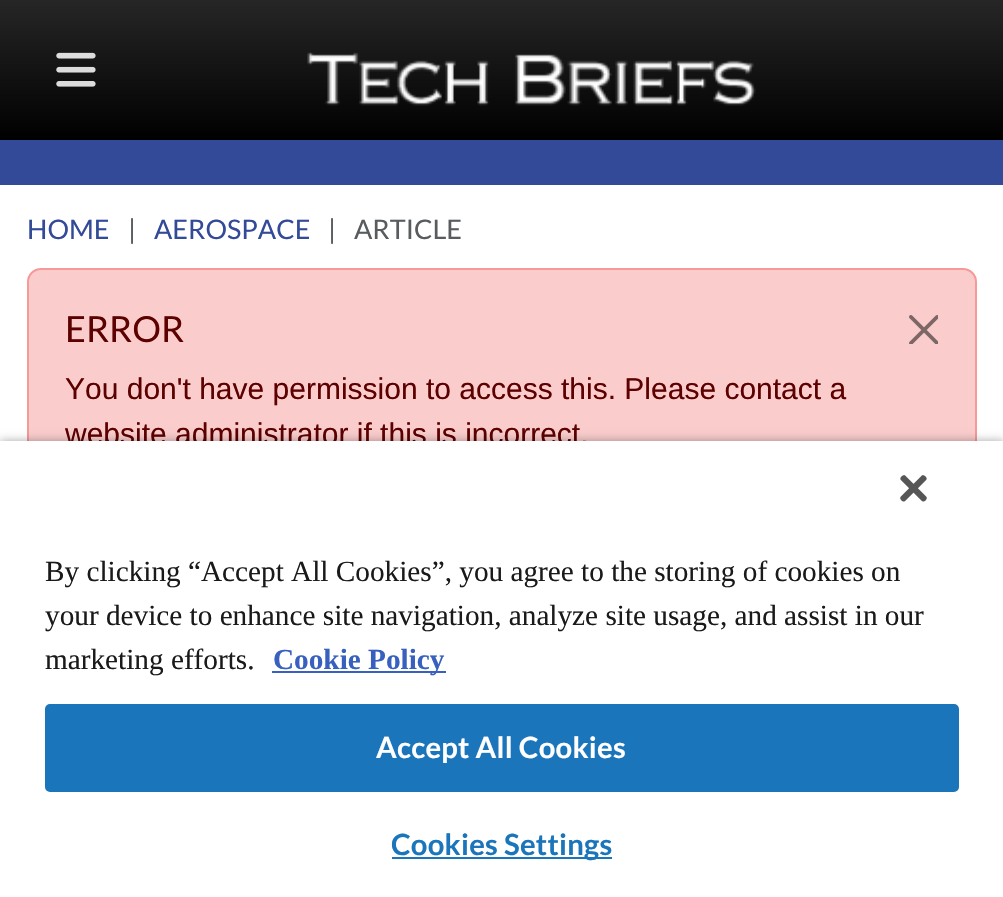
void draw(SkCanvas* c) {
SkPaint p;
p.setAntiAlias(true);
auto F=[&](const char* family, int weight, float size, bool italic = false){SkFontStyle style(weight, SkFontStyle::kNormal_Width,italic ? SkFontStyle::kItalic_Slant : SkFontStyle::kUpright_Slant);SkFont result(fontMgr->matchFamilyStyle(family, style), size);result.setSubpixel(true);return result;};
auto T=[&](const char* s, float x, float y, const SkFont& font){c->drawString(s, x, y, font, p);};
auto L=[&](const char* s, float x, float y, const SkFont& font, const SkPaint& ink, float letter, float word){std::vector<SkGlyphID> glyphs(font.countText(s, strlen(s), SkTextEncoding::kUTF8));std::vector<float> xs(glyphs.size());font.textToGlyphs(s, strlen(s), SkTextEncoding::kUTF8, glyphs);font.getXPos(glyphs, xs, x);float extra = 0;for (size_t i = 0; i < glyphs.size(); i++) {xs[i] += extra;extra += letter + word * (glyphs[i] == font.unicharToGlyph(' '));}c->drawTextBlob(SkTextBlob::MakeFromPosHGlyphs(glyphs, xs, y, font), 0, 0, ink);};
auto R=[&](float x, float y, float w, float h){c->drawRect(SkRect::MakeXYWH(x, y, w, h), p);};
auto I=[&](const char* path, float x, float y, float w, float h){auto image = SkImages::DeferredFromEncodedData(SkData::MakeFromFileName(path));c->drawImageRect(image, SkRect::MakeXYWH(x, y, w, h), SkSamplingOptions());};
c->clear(0xffffffff);
{
const SkColor colors[] = {0xff262626,0xff000000};
const float stops[] = {0,1};
const SkPoint ends[] = {{502,0}, {502,140}};
p.setShader(SkGradientShader::MakeLinear(ends, colors, stops, 2, SkTileMode::kClamp));
p.setAlpha(255);
}
R(0,0,1003,140);
p.setShader(nullptr);
p.setColor(0xff324a98);
R(0,140,1003,45);
I("1.png",56,52,40,35);
I("2.png",307,52,449,54);
auto f1 = F("Lato",400,27);
T("HOME",27,239,f1);
p.setColor(0xff595c5f);
T("|",128,239,f1);
p.setColor(0xff324a98);
T("AEROSPACE",154,239,f1);
p.setColor(0xff595c5f);
T("|",328,239,f1);
T("ARTICLE",354,239,f1);
p.setColor(0xfffacccc);
c->drawRoundRect(SkRect::MakeXYWH(28,269,948,225),13,13,p);
p.setStroke(true);
p.setStrokeWidth(2);
p.setColor(0xfff59999);
c->drawRoundRect(SkRect::MakeXYWH(28,269,948,225),13,13,p);
auto f2 = F("Lato",400,36);
p.setStroke(false);
p.setColor(0xff5c0000);
T("ERROR",65,342,f2);
I("3.png",909,315,29,29);
auto f3 = F("Liberation Sans",400,30);
T("You don't have permission to access this. Please contact a",65,399,f3);
T("website administrator if this is incorrect.",65,444,f3);
p.setColor(0x59000000);
p.setMaskFilter(SkMaskFilter::MakeBlur(kNormal_SkBlurStyle, 4.5));
c->drawRect(SkRect::MakeXYWH(0,441,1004,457),p);
p.setMaskFilter(nullptr);
p.setColor(0xffffffff);
R(0,441,1003,456);
I("4.png",900,475,27,27);
auto f4 = F("Liberation Serif",400,29.25);
p.setColor(0xff1a1a1a);
T("By clicking “Accept All Cookies”, you agree to the storing of cookies on",45,581,f4);
T("your device to enhance site navigation, analyze site usage, and assist in our",45,625,f4);
T("marketing efforts.",45,669,f4);
p.setColor(0xff3860be);
R(272,671,174,2);
auto f5 = F("Liberation Serif",700,29.25);
T("Cookie Policy",273,669,f5);
p.setColor(0xff1b75bb);
c->drawRoundRect(SkRect::MakeXYWH(46,705,912,86),4,4,p);
p.setStroke(true);
c->drawRoundRect(SkRect::MakeXYWH(46,705,912,86),4,4,p);
auto f6 = F("Lato",700,29.25);
p.setStroke(false);
p.setColor(0xffffffff);
L("Accept All Cookies",376,758,f6,p,.25,0);
p.setColor(0xff1b75bb);
R(392,857,220,2);
L("Cookies Settings",391,855,f6,p,.25,0);
}
